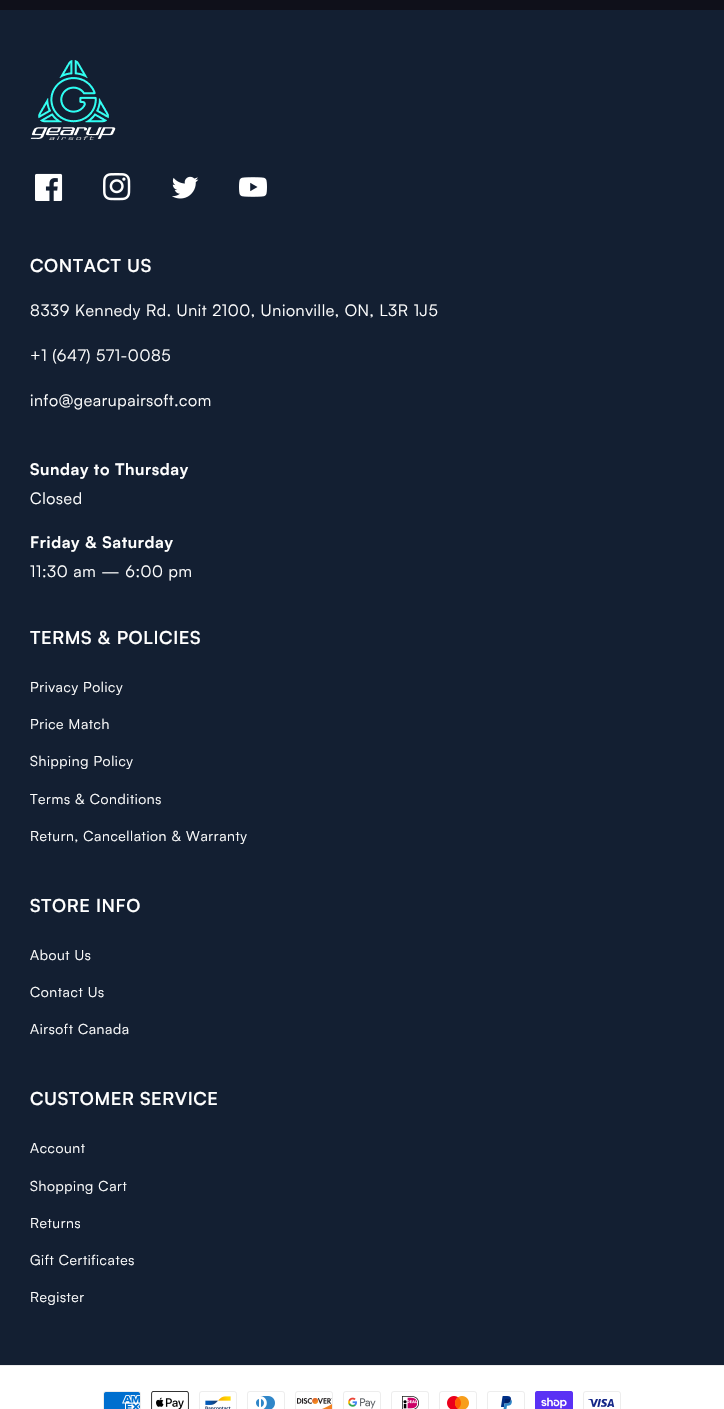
void draw(SkCanvas* c) {
SkPaint p;
p.setAntiAlias(true);
auto F=[&](const char* family, int weight, float size, bool italic = false){SkFontStyle style(weight, SkFontStyle::kNormal_Width,italic ? SkFontStyle::kItalic_Slant : SkFontStyle::kUpright_Slant);SkFont result(fontMgr->matchFamilyStyle(family, style), size);result.setSubpixel(true);return result;};
auto L=[&](const char* s, float x, float y, const SkFont& font, const SkPaint& ink, float letter, float word){std::vector<SkGlyphID> glyphs(font.countText(s, strlen(s), SkTextEncoding::kUTF8));std::vector<float> xs(glyphs.size());font.textToGlyphs(s, strlen(s), SkTextEncoding::kUTF8, glyphs);font.getXPos(glyphs, xs, x);float extra = 0;for (size_t i = 0; i < glyphs.size(); i++) {xs[i] += extra;extra += letter + word * (glyphs[i] == font.unicharToGlyph(' '));}c->drawTextBlob(SkTextBlob::MakeFromPosHGlyphs(glyphs, xs, y, font), 0, 0, ink);};
auto R=[&](float x, float y, float w, float h){c->drawRect(SkRect::MakeXYWH(x, y, w, h), p);};
auto I=[&](const char* path, float x, float y, float w, float h){auto image = SkImages::DeferredFromEncodedData(SkData::MakeFromFileName(path));c->drawImageRect(image, SkRect::MakeXYWH(x, y, w, h), SkSamplingOptions());};
c->clear(0xffffffff);
p.setColor(0xff0f101a);
R(0,0,724,10);
p.setColor(0xff131f32);
R(0,10,724,1355);
I("1.png",30,60,86,80);
I("2.png",35,173,28,28);
I("3.png",103,173,28,28);
I("4.png",172,176,27,23);
I("5.png",239,177,28,20);
auto f1 = F("Satoshi",600,18);
p.setColor(0xffffffff);
L("CONTACT US",30,272,f1,p,.6,0);
auto f2 = F("Satoshi",400,16);
L("8339 Kennedy Rd. Unit 2100, Unionville, ON, L3R 1J5",30,316,f2,p,.6,0);
L("+1 (647) 571-0085",30,361,f2,p,.6,0);
L("info@gearupairsoft.com",30,406,f2,p,.6,0);
auto f3 = F("Satoshi",700,16);
L("Sunday to Thursday",30,475,f3,p,.6,0);
L("Closed",30,504,f2,p,.6,0);
L("Friday & Saturday",30,548,f3,p,.6,0);
L("11:30 am — 6:00 pm",30,577,f2,p,.6,0);
L("TERMS & POLICIES",30,644,f1,p,.6,0);
auto f4 = F("Satoshi",400,14);
L("Privacy Policy",30,692,f4,p,.6,0);
L("Price Match",30,729,f4,p,.6,0);
L("Shipping Policy",30,766,f4,p,.6,0);
L("Terms & Conditions",30,804,f4,p,.6,0);
L("Return, Cancellation & Warranty",30,841,f4,p,.6,0);
L("STORE INFO",30,912,f1,p,.6,0);
L("About Us",30,960,f4,p,.6,0);
L("Contact Us",30,997,f4,p,.6,0);
L("Airsoft Canada",30,1034,f4,p,.6,0);
L("CUSTOMER SERVICE",30,1105,f1,p,.6,0);
L("Account",30,1153,f4,p,.6,0);
L("Shopping Cart",30,1191,f4,p,.6,0);
L("Returns",30,1228,f4,p,.6,0);
L("Gift Certificates",30,1265,f4,p,.6,0);
L("Register",30,1302,f4,p,.6,0);
p.setColor(0xffececec);
R(0,1365,724,1);
I("6.png",103,1391,38,18);
I("7.png",151,1391,38,18);
I("8.png",199,1391,38,18);
I("9.png",247,1391,38,18);
I("10.png",295,1391,38,18);
I("11.png",343,1391,38,18);
I("12.png",391,1391,38,18);
I("13.png",439,1391,38,18);
I("14.png",487,1391,38,18);
I("15.png",535,1391,38,18);
I("16.png",583,1391,38,18);
}
